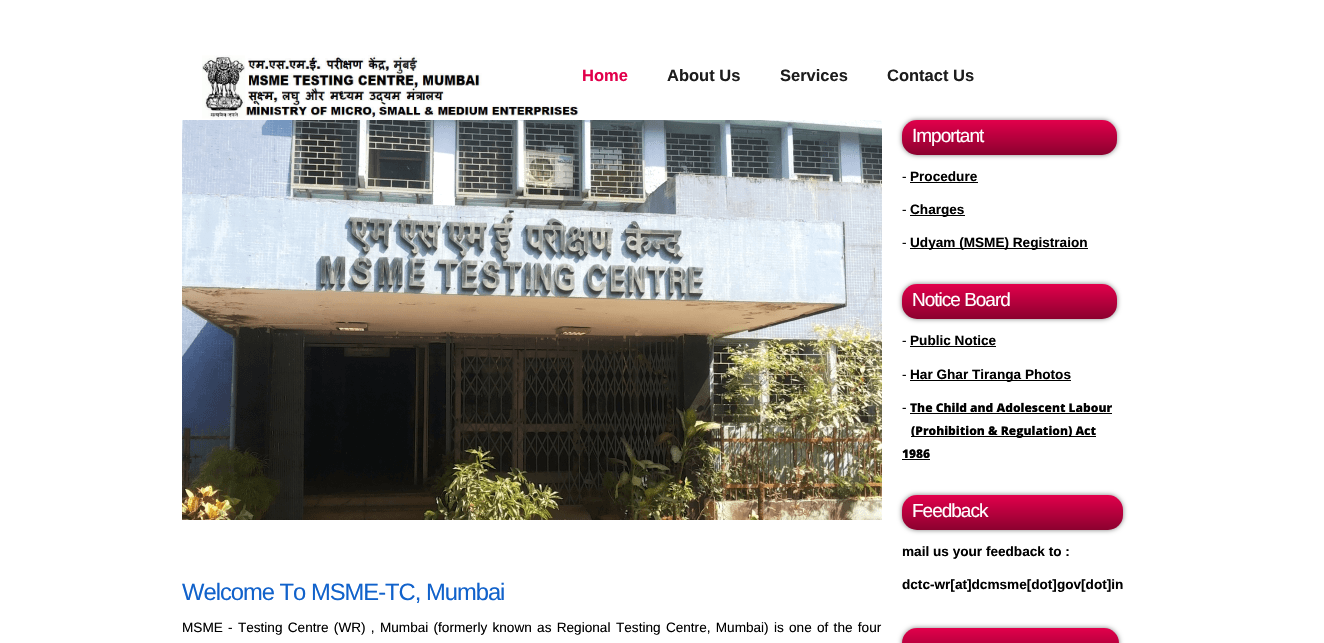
void draw(SkCanvas* c) {
SkPaint p;
p.setAntiAlias(true);
auto F=[&](const char* family, int weight, float size, bool italic = false){SkFontStyle style(weight, SkFontStyle::kNormal_Width,italic ? SkFontStyle::kItalic_Slant : SkFontStyle::kUpright_Slant);SkFont result(fontMgr->matchFamilyStyle(family, style), size);result.setSubpixel(true);return result;};
auto T=[&](const char* s, float x, float y, const SkFont& font){c->drawString(s, x, y, font, p);};
auto L=[&](const char* s, float x, float y, const SkFont& font, const SkPaint& ink, float letter, float word){std::vector<SkGlyphID> glyphs(font.countText(s, strlen(s), SkTextEncoding::kUTF8));std::vector<float> xs(glyphs.size());font.textToGlyphs(s, strlen(s), SkTextEncoding::kUTF8, glyphs);font.getXPos(glyphs, xs, x);float extra = 0;for (size_t i = 0; i < glyphs.size(); i++) {xs[i] += extra;extra += letter + word * (glyphs[i] == font.unicharToGlyph(' '));}c->drawTextBlob(SkTextBlob::MakeFromPosHGlyphs(glyphs, xs, y, font), 0, 0, ink);};
auto R=[&](float x, float y, float w, float h){c->drawRect(SkRect::MakeXYWH(x, y, w, h), p);};
auto Q=[&](float x, float y, float w, float h, float radius){c->drawRoundRect(SkRect::MakeXYWH(x, y, w, h), radius, radius, p);};
auto I=[&](const char* path, float x, float y, float w, float h){auto image = SkImages::DeferredFromEncodedData(SkData::MakeFromFileName(path));c->drawImageRect(image, SkRect::MakeXYWH(x, y, w, h), SkSamplingOptions());};
c->clear(0xffffffff);
I("1.png",202,55,377,64);
auto f1 = F("Liberation Sans",700,16.5);
p.setColor(0xffe2004b);
T("Home",582,81,f1);
p.setColor(0xff1d1d1d);
T("About Us",667,81,f1);
T("Services",780,81,f1);
T("Contact Us",887,81,f1);
I("2.png",182,120,700,400);
p.setColor(0x80000000);
p.setMaskFilter(SkMaskFilter::MakeBlur(kNormal_SkBlurStyle, 2.5));
c->drawRoundRect(SkRect::MakeXYWH(902,120,215,35),15,15,p);
p.setMaskFilter(nullptr);
{
const SkColor colors[] = {0xffe2004b,0xff8b012f};
const float stops[] = {0,1};
const SkPoint ends[] = {{1010,120}, {1010,155}};
p.setShader(SkGradientShader::MakeLinear(ends, colors, stops, 2, SkTileMode::kClamp));
p.setAlpha(255);
}
Q(902,120,215,35,15);
auto f2 = F("Liberation Sans",400,19);
p.setShader(nullptr);
p.setColor(0xffffffff);
L("Important",912,142,f2,p,-1,0);
auto f3 = F("Liberation Sans",400,13.6);
p.setColor(0xff000000);
T("-",902,181,f3);
auto f4 = F("Liberation Sans",700,13.6);
T("Procedure",910,181,f4);
R(910,182,68,1);
T("-",902,214,f3);
R(910,215,55,1);
T("Charges",910,214,f4);
T("-",902,247,f3);
R(910,248,178,1);
T("Udyam (MSME) Registraion",910,247,f4);
p.setColor(0x80000000);
p.setMaskFilter(SkMaskFilter::MakeBlur(kNormal_SkBlurStyle, 2.5));
c->drawRoundRect(SkRect::MakeXYWH(902,284,215,35),15,15,p);
p.setMaskFilter(nullptr);
{
const SkColor colors[] = {0xffe2004b,0xff8b012f};
const float stops[] = {0,1};
const SkPoint ends[] = {{1010,284}, {1010,319}};
p.setShader(SkGradientShader::MakeLinear(ends, colors, stops, 2, SkTileMode::kClamp));
p.setAlpha(255);
}
Q(902,284,215,35,15);
p.setShader(nullptr);
p.setColor(0xffffffff);
L("Notice Board",912,306,f2,p,-1,0);
p.setColor(0xff000000);
T("-",902,345,f3);
T("Public Notice",910,345,f4);
R(910,346,86,1);
T("-",902,379,f3);
R(910,380,161,1);
T("Har Ghar Tiranga Photos",910,379,f4);
T("-",902,412,f3);
auto f5 = F("Open Sans",800,12);
T("The Child and Adolescent Labour",910,412,f5);
R(910,413,202,1);
R(911,436,185,1);
T("(Prohibition & Regulation) Act",911,435,f5);
T("1986",902,458,f5);
R(902,459,28,1);
p.setColor(0x80000000);
p.setMaskFilter(SkMaskFilter::MakeBlur(kNormal_SkBlurStyle, 2.5));
c->drawRoundRect(SkRect::MakeXYWH(902,495,221,35),15,15,p);
p.setMaskFilter(nullptr);
{
const SkColor colors[] = {0xffe2004b,0xff8b012f};
const float stops[] = {0,1};
const SkPoint ends[] = {{1013,495}, {1013,530}};
p.setShader(SkGradientShader::MakeLinear(ends, colors, stops, 2, SkTileMode::kClamp));
p.setAlpha(255);
}
Q(902,495,221,35,15);
p.setShader(nullptr);
p.setColor(0xffffffff);
L("Feedback",912,517,f2,p,-1,0);
p.setColor(0xff000000);
T("mail us your feedback to :",902,556,f4);
T("dctc-wr[at]dcmsme[dot]gov[dot]in",902,589,f4);
p.setColor(0x80000000);
p.setMaskFilter(SkMaskFilter::MakeBlur(kNormal_SkBlurStyle, 2.5));
c->drawRoundRect(SkRect::MakeXYWH(902,628,217,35),15,15,p);
p.setMaskFilter(nullptr);
{
const SkColor colors[] = {0xffe2004b,0xff8b012f};
const float stops[] = {0,1};
const SkPoint ends[] = {{1011,628}, {1011,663}};
p.setShader(SkGradientShader::MakeLinear(ends, colors, stops, 2, SkTileMode::kClamp));
p.setAlpha(255);
}
Q(902,628,217,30,15);
auto f6 = F("Liberation Sans",400,23.75);
p.setShader(nullptr);
p.setColor(0xff1162cb);
L("Welcome To MSME-TC, Mumbai",182,600,f6,p,-1,0);
p.setColor(0xff000000);
L("MSME - Testing Centre (WR) , Mumbai (formerly known as Regional",182,632,f3,p,0,1.5);
L("Testing Centre, Mumbai) is one of the four",616,632,f3,p,0,1.5);
}
